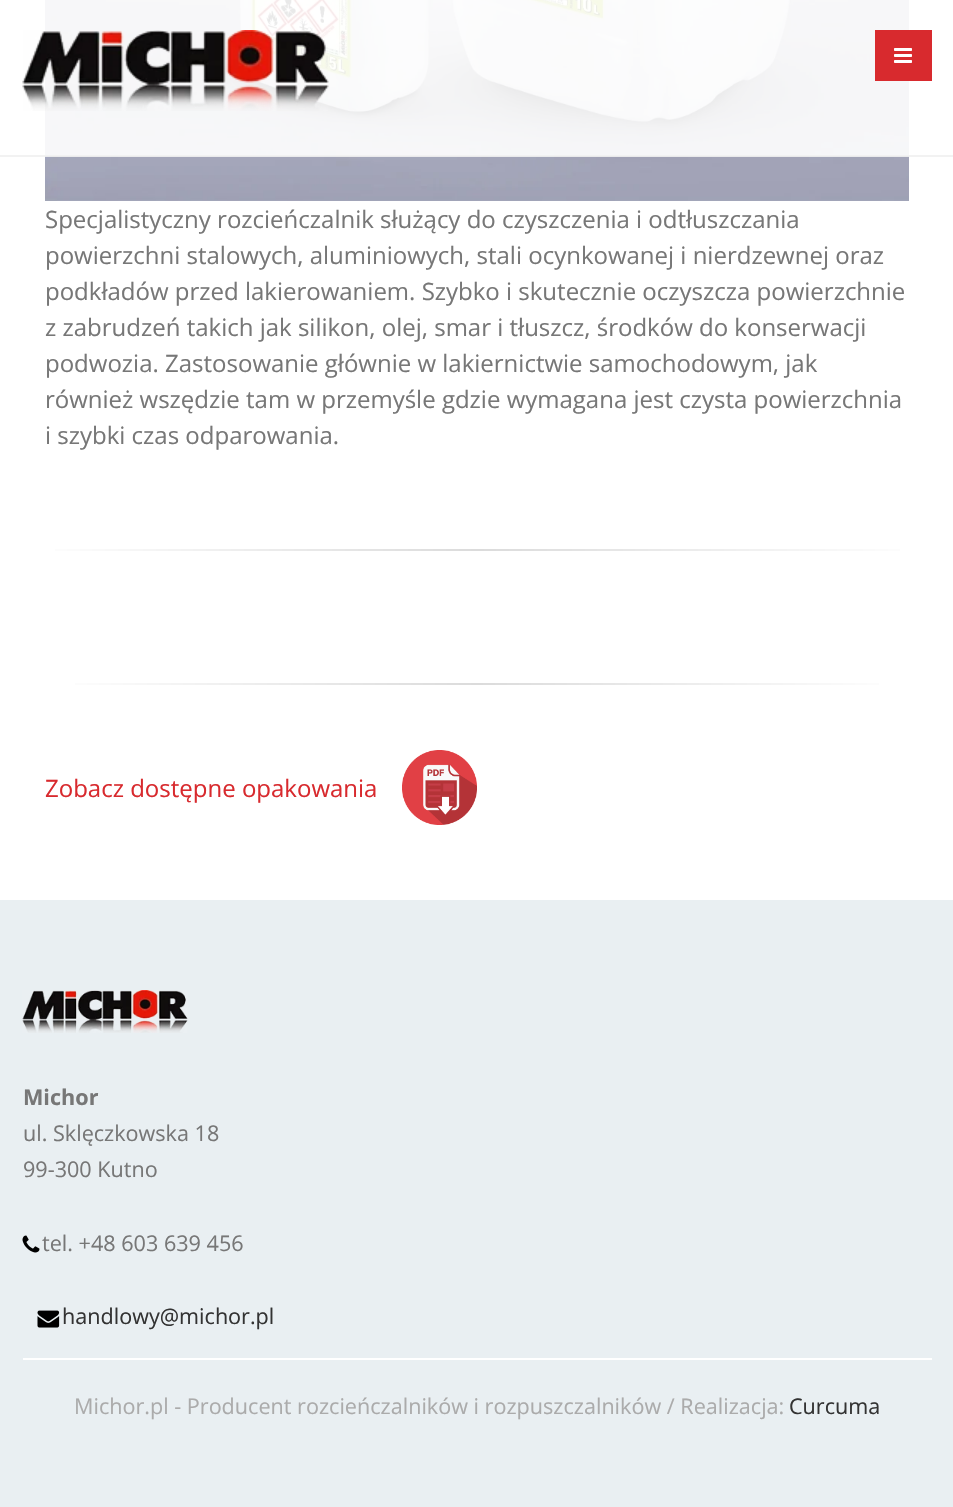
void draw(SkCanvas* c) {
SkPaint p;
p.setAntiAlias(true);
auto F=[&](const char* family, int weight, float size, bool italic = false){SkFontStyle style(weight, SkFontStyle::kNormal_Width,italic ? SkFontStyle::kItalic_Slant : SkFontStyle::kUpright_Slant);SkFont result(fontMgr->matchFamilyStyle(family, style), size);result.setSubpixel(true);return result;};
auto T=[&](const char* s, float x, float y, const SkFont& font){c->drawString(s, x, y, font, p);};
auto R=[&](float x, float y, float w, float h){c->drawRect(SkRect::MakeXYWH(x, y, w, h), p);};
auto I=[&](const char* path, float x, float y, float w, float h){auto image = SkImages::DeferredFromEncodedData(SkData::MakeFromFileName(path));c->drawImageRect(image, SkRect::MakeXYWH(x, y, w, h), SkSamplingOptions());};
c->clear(0xffffffff);
I("3.png",45,0,864,201);
p.setColor(0xe6ffffff);
R(45,0,864,156);
p.setColor(0xe6f1f1f1);
R(0,155,953,2);
I("1.png",22,30,307,81);
p.setColor(0xffd82a2e);
R(875,30,57,51);
I("2.png",894,48,18,15);
auto f1 = F("Open Sans",400,24);
p.setColor(0xff777777);
T("Specjalistyczny rozcieńczalnik służący do czyszczenia i odtłuszczania",45,228,f1);
T("powierzchni stalowych, aluminiowych, stali ocynkowanej i nierdzewnej oraz",45,264,f1);
T("podkładów przed lakierowaniem. Szybko i skutecznie oczyszcza powierzchnie",45,300,f1);
T("z zabrudzeń takich jak silikon, olej, smar i tłuszcz, środków do konserwacji",45,336,f1);
T("podwozia. Zastosowanie głównie w lakiernictwie samochodowym, jak",45,372,f1);
T("również wszędzie tam w przemyśle gdzie wymagana jest czysta powierzchnia",45,408,f1);
T("i szybki czas odparowania.",45,444,f1);
{
const SkColor colors[] = {0xffffffff,0xffdbdbdb,0xffffffff};
const float stops[] = {0,.5,1};
const SkPoint ends[] = {{23,550}, {932,550}};
p.setShader(SkGradientShader::MakeLinear(ends, colors, stops, 3, SkTileMode::kClamp));
p.setAlpha(255);
}
R(55,549,845,2);
{
const SkColor colors[] = {0xffffffff,0xffdbdbdb,0xffffffff};
const float stops[] = {0,.5,1};
const SkPoint ends[] = {{45,683}, {909,683}};
p.setShader(SkGradientShader::MakeLinear(ends, colors, stops, 3, SkTileMode::kClamp));
p.setAlpha(255);
}
R(75,683,804,2);
p.setShader(nullptr);
p.setColor(0xffd82a2e);
T("Zobacz dostępne opakowania",45,797,f1);
I("4.png",402,750,75,75);
p.setColor(0xffe9eff2);
R(0,900,953,607);
I("5.png",22,990,166,43);
auto f2 = F("Open Sans",700,21.6);
p.setColor(0xff777777);
T("Michor",23,1105,f2);
auto f3 = F("Open Sans",400,21.6);
T("ul. Sklęczkowska 18",23,1141,f3);
T("99-300 Kutno",23,1177,f3);
I("6.png",22,1235,18,18);
T("tel. +48 603 639 456",42,1251,f3);
I("7.png",37,1310,23,18);
p.setColor(0xff333333);
T("handlowy@michor.pl",62,1324,f3);
p.setColor(0xffffffff);
R(23,1358,909,2);
p.setColor(0xffababab);
T("Michor.pl - Producent rozcieńczalników i rozpuszczalników / Realizacja:",74,1414,f3);
p.setColor(0xff333333);
T("Curcuma",789,1414,f3);
}
